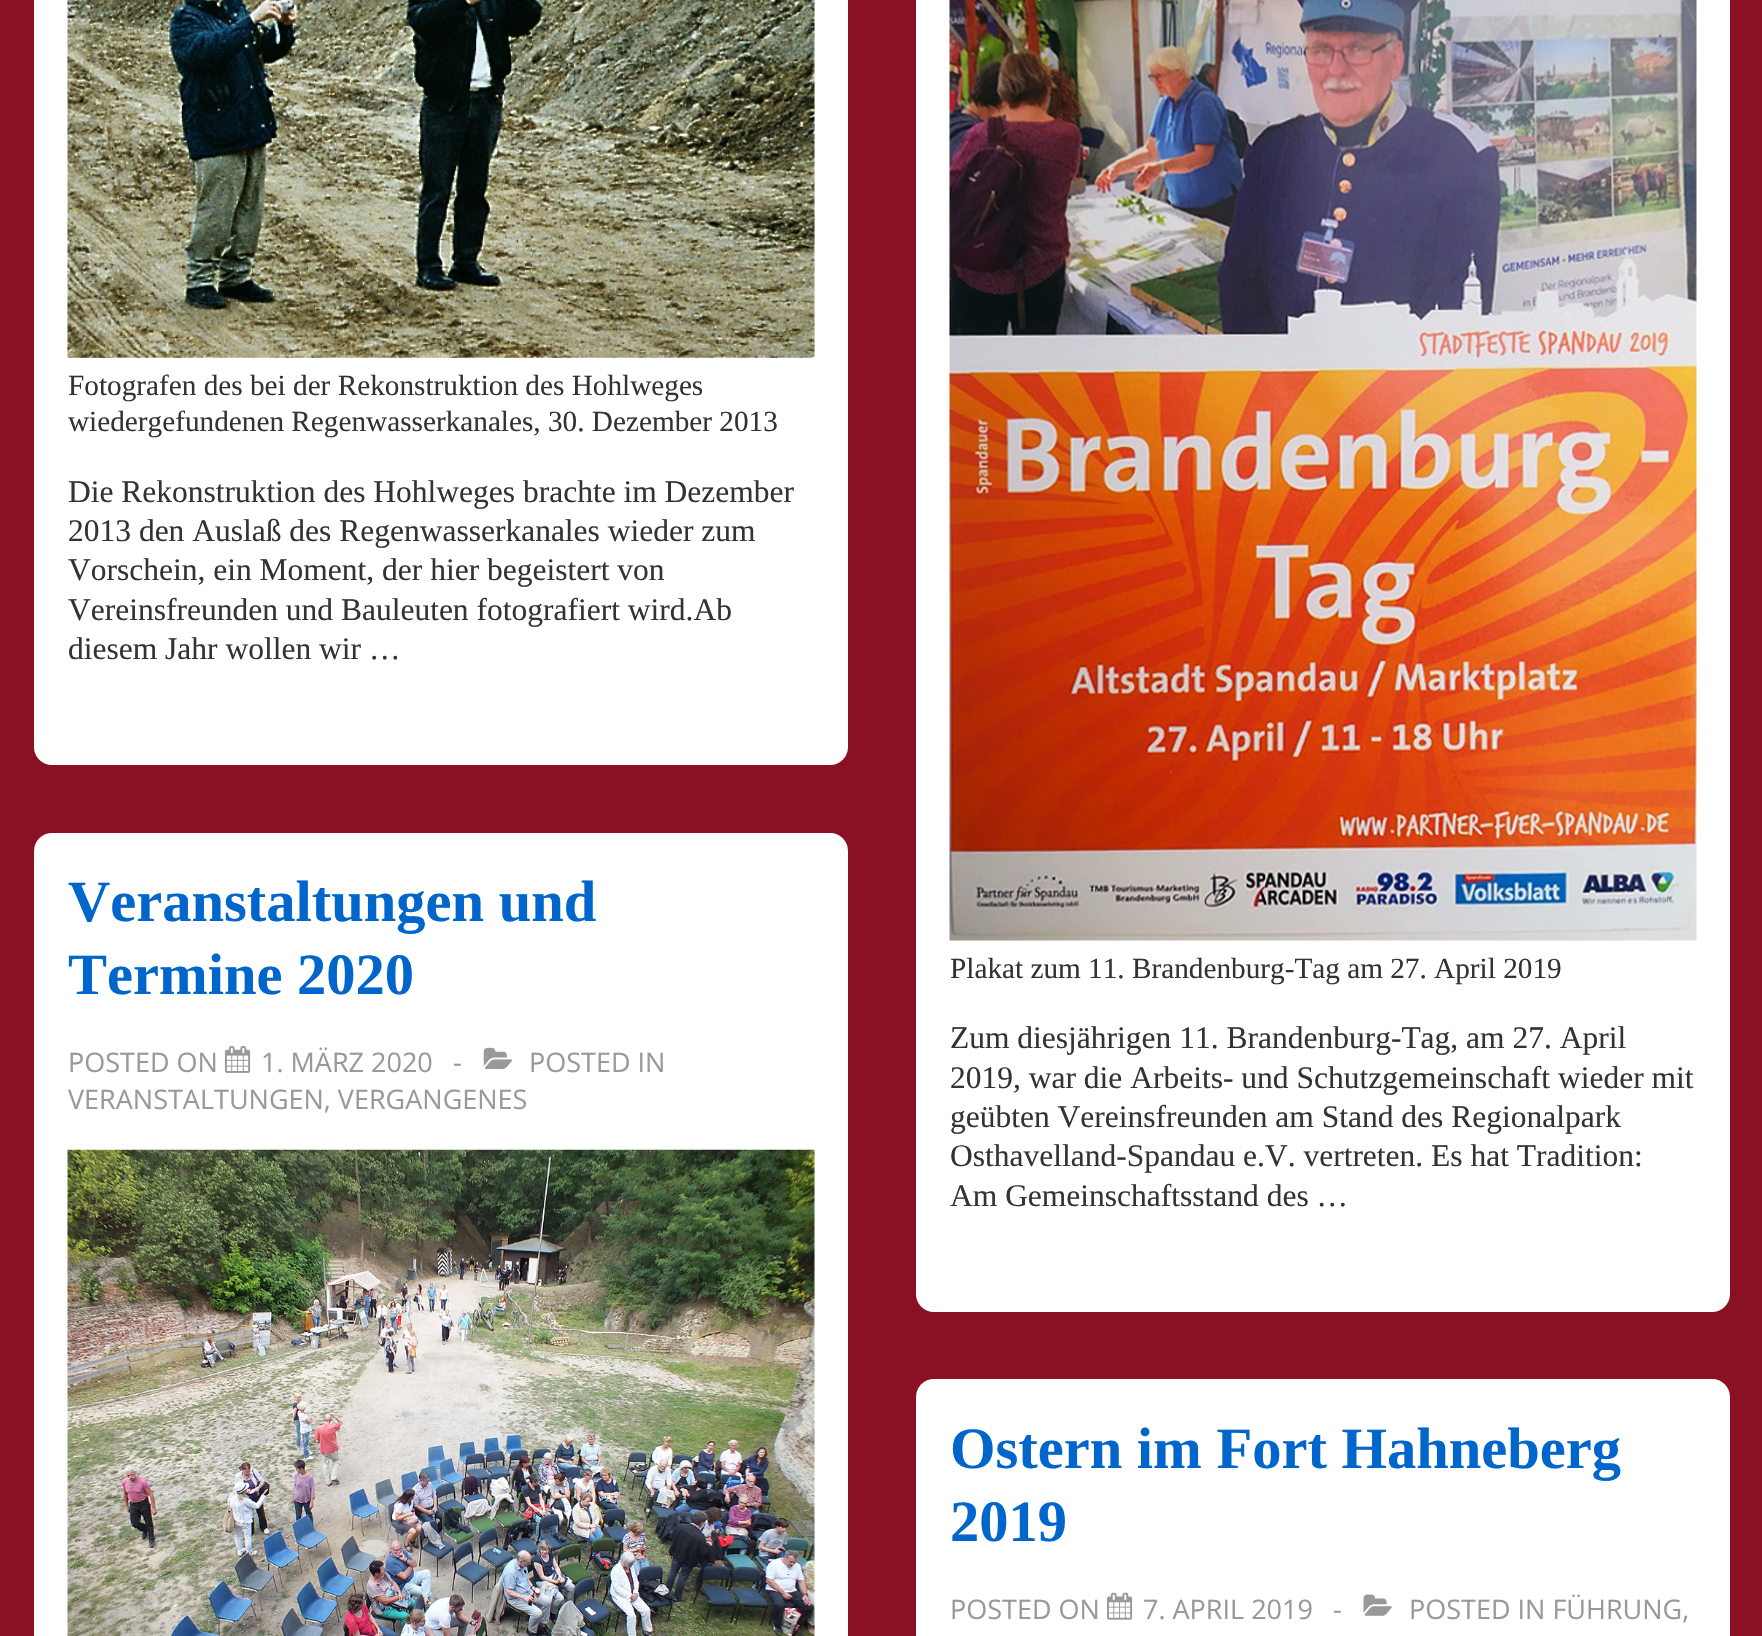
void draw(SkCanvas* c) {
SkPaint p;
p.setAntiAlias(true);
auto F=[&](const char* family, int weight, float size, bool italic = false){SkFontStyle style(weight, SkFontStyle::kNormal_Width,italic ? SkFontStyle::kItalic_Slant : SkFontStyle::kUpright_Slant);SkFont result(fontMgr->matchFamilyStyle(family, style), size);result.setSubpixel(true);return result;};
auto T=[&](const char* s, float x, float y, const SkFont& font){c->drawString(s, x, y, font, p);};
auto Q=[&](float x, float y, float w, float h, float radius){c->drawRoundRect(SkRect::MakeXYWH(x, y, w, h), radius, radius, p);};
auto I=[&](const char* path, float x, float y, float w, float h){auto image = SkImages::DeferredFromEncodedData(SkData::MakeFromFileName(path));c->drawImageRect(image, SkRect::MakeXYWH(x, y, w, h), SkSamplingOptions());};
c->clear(0xff8a1024);
p.setColor(0xffffffff);
Q(34,-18,814,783,18);
I("1.png",67,0,748,358);
auto f1 = F("Liberation Serif",400,29.25);
p.setColor(0xff333333);
T("Fotografen des bei der Rekonstruktion des Hohlweges",68,395,f1);
T("wiedergefundenen Regenwasserkanales, 30. Dezember 2013",68,431,f1);
auto f2 = F("Liberation Serif",400,31.5);
T("Die Rekonstruktion des Hohlweges brachte im Dezember",68,502,f2);
T("2013 den Auslaß des Regenwasserkanales wieder zum",68,541,f2);
T("Vorschein, ein Moment, der hier begeistert von",68,580,f2);
T("Vereinsfreunden und Bauleuten fotografiert wird.Ab",68,620,f2);
T("diesem Jahr wollen wir …",68,659,f2);
p.setColor(0xffffffff);
Q(34,833,814,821,18);
auto f3 = F("Liberation Serif",700,58.5);
p.setColor(0xff0066cc);
T("Veranstaltungen und",68,921,f3);
T("Termine 2020",68,994,f3);
auto f4 = F("Open Sans",400,27);
p.setColor(0xff999999);
T("POSTED ON",68,1072,f4);
I("2.png",225,1045,26,28);
T("1. MÄRZ 2020",261,1072,f4);
T("-",453,1072,f4);
I("3.png",483,1047,29,23);
T("POSTED IN",529,1072,f4);
T("VERANSTALTUNGEN, VERGANGENES",68,1109,f4);
I("4.png",67,1149,748,487);
p.setColor(0xffffffff);
Q(916,-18,814,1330,18);
I("5.png",949,0,748,941);
p.setColor(0xff333333);
T("Plakat zum 11. Brandenburg-Tag am 27. April 2019",950,978,f1);
T("Zum diesjährigen 11. Brandenburg-Tag, am 27. April",950,1048,f2);
T("2019, war die Arbeits- und Schutzgemeinschaft wieder mit",950,1088,f2);
T("geübten Vereinsfreunden am Stand des Regionalpark",950,1127,f2);
T("Osthavelland-Spandau e.V. vertreten. Es hat Tradition:",950,1166,f2);
T("Am Gemeinschaftsstand des …",950,1206,f2);
p.setColor(0xffffffff);
Q(916,1379,814,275,18);
p.setColor(0xff0066cc);
T("Ostern im Fort Hahneberg",950,1468,f3);
T("2019",950,1541,f3);
p.setColor(0xff999999);
T("POSTED ON",950,1619,f4);
I("6.png",1107,1592,26,28);
T("7. APRIL 2019",1143,1619,f4);
T("-",1333,1619,f4);
I("7.png",1363,1594,29,22);
T("POSTED IN FÜHRUNG,",1409,1619,f4);
}
